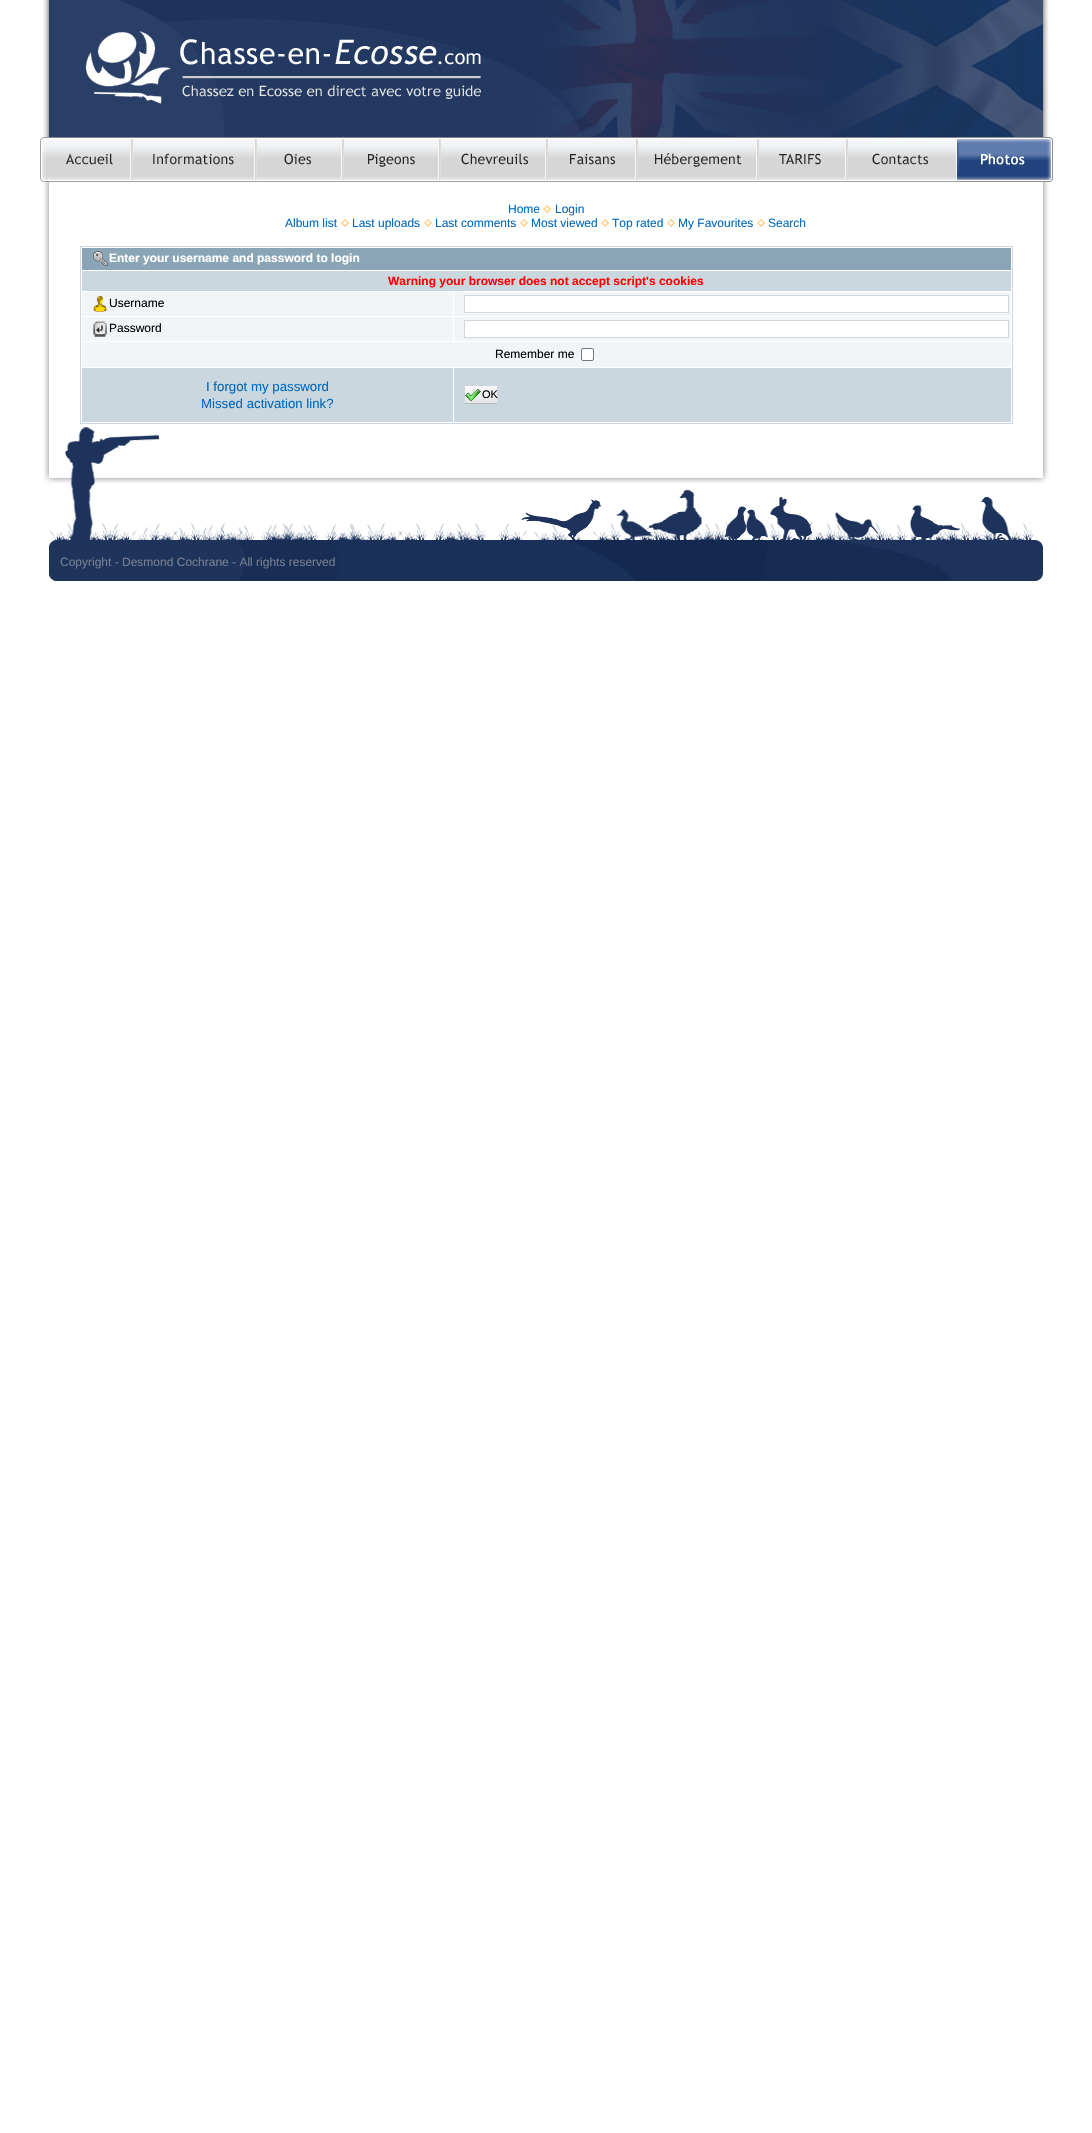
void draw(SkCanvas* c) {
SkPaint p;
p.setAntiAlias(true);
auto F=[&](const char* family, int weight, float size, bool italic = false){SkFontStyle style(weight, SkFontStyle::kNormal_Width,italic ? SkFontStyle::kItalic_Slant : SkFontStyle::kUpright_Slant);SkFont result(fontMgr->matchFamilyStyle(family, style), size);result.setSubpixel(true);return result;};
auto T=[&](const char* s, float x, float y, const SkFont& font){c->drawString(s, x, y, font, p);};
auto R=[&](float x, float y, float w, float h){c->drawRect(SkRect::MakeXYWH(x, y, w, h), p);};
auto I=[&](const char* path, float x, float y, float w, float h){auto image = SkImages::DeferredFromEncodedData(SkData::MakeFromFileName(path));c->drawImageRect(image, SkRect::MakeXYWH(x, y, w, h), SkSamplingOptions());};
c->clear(0xffffffff);
I("1.png",43,0,1006,137);
I("2.png",40,137,917,45);
I("3.png",957,137,96,45);
I("4.png",43,182,1006,243);
auto f1 = F("Liberation Sans",400,12);
p.setColor(0xff0269bd);
T("Home",508,213,f1);
I("5.png",543,205,8,8);
T("Login",555,213,f1);
T("Album list",285,227,f1);
I("5.png",341,219,8,8);
T("Last uploads",352,227,f1);
I("5.png",424,219,8,8);
T("Last comments",435,227,f1);
I("5.png",520,219,8,8);
T("Most viewed",531,227,f1);
I("5.png",601,219,8,8);
T("Top rated",612,227,f1);
I("5.png",667,219,8,8);
T("My Favourites",678,227,f1);
I("5.png",757,219,8,8);
T("Search",768,227,f1);
p.setStroke(true);
p.setStrokeWidth(1);
p.setColor(0xffccd7e0);
c->drawRect(SkRect::MakeXYWH(80.5,246.5,932,177),p);
p.setStroke(false);
p.setColor(0xff8aa5b5);
R(82,248,929,22);
I("6.png",93,251,15,15);
auto f2 = F("Liberation Sans",700,12);
p.setColor(0xffffffff);
T("Enter your username and password to login",109,262,f2);
p.setColor(0xffcbd7de);
R(82,271,929,20);
p.setColor(0xffff0000);
T("Warning your browser does not accept script's cookies",388,285,f2);
p.setColor(0xfff2f5f7);
R(82,292,371,24);
I("7.png",93,296,14,16);
p.setColor(0xff000000);
T("Username",109,307,f1);
p.setColor(0xfff2f5f7);
R(454,292,557,24);
p.setColor(0xffffffff);
c->drawRect(SkRect::MakeXYWH(464.5,295.5,544,17),p);
p.setStroke(true);
p.setColor(0xffd1d7dc);
c->drawRect(SkRect::MakeXYWH(464.5,295.5,544,17),p);
p.setStroke(false);
p.setColor(0xfff2f5f7);
R(82,317,371,24);
I("8.png",93,321,14,16);
p.setColor(0xff000000);
T("Password",109,332,f1);
p.setColor(0xfff2f5f7);
R(454,317,557,24);
p.setColor(0xffffffff);
c->drawRect(SkRect::MakeXYWH(464.5,320.5,544,17),p);
p.setStroke(true);
p.setColor(0xffd1d7dc);
c->drawRect(SkRect::MakeXYWH(464.5,320.5,544,17),p);
p.setStroke(false);
p.setColor(0xfff2f5f7);
R(82,342,929,25);
p.setColor(0xff000000);
T("Remember me",495,358,f1);
p.setColor(0xffffffff);
c->drawRoundRect(SkRect::MakeXYWH(581.5,348.5,12,12),1.5,1.5,p);
p.setStroke(true);
p.setColor(0xff767676);
c->drawRoundRect(SkRect::MakeXYWH(581.5,348.5,12,12),1.5,1.5,p);
p.setStroke(false);
p.setColor(0xffcbd7de);
R(82,368,371,54);
auto f3 = F("Liberation Sans",400,13.25);
p.setColor(0xff0269bd);
T("I forgot my password",206,391,f3);
T("Missed activation link?",201,408,f3);
p.setColor(0xffcbd7de);
R(454,368,557,54);
I("9.png",465,386,32,18);
I("10.png",465,389,16,12);
auto f4 = F("Liberation Sans",400,11);
p.setColor(0xff000000);
T("OK",482,398,f4);
I("11.png",43,425,1006,156);
p.setColor(0xff757f91);
T("Copyright - Desmond Cochrane - All rights reserved",60,566,f1);
}
